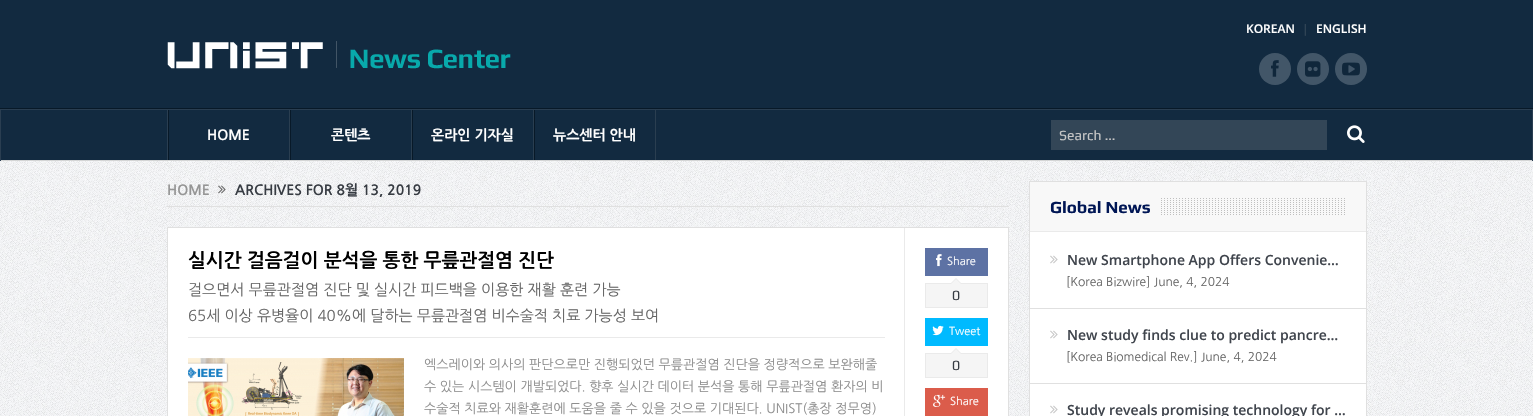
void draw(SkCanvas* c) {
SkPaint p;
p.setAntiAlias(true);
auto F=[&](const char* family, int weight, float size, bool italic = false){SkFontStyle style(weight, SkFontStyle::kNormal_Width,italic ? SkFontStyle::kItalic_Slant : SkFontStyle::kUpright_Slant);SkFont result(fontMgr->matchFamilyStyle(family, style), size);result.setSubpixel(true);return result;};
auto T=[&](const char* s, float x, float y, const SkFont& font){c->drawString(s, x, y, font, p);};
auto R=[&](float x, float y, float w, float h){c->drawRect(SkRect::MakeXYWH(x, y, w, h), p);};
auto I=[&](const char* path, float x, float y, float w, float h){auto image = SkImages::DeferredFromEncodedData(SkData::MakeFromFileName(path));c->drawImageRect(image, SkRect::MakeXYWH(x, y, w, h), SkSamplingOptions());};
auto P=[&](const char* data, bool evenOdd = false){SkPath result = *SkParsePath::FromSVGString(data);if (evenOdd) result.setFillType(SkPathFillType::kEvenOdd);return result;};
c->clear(0xffffffff);
I("1.png",0,161,1533,255);
p.setColor(0xff122a40);
R(0,0,1533,108);
p.setColor(0xff081928);
R(0,108,1533,1);
auto f1 = F("Open Sans",600,12);
p.setColor(0xffffffff);
T("KOREAN",1246,33,f1);
p.setColor(0xff334657);
T("|",1302,33,f1);
p.setColor(0xffffffff);
T("ENGLISH",1316,33,f1);
I("2.png",167,42,156,27);
I("3.png",336,41,175,28);
p.setColor(0xff425668);
c->drawCircle(1275,69,16,p);
I("4.png",1271,60,8,17);
c->drawCircle(1313,69,16,p);
I("5.png",1305,61,16,16);
c->drawCircle(1351,69,16,p);
I("6.png",1342,62,18,14);
p.setStroke(true);
p.setStrokeWidth(1);
p.setColor(0xff2a3e51);
c->drawRect(SkRect::MakeXYWH(.5,109.5,1532,51),p);
p.setStroke(false);
p.setColor(0xff122a40);
R(1,110,1531,50);
p.setColor(0xffd4d5d5);
R(1,160,1531,1);
p.setColor(0xff2a3e51);
R(167,110,1,50);
p.setColor(0xff2a3e50);
R(289,110,1,50);
p.setColor(0xff081928);
R(168,110,1,50);
auto f2 = F("NanumGothic",700,14);
p.setColor(0xffffffff);
T("HOME",207,140,f2);
p.setColor(0xff2a3e50);
R(411,110,1,50);
p.setColor(0xff081928);
R(290,110,1,50);
p.setColor(0xffffffff);
T("콘텐츠",331,140,f2);
p.setColor(0xff2a3e50);
R(533,110,1,50);
p.setColor(0xff081928);
R(412,110,1,50);
p.setColor(0xffffffff);
T("온라인 기자실",431,140,f2);
p.setColor(0xff2a3e50);
R(655,110,1,50);
p.setColor(0xff081928);
R(534,110,1,50);
p.setColor(0xffffffff);
T("뉴스센터 안내",553,140,f2);
p.setColor(0xff334657);
R(1051,120,276,30);
auto f3 = F("Play",400,14);
p.setColor(0xffc6c6c6);
T("Search ...",1059,140,f3);
I("7.png",1347,125,18,18);
p.setColor(0xffe0e0e0);
R(167,206,842,1);
p.setColor(0xff959595);
T("HOME",167,195,f2);
I("8.png",218,185,8,9);
p.setColor(0xff373c43);
T("ARCHIVES FOR 8월 13, 2019",235,195,f2);
p.setColor(0xffffffff);
c->drawRect(SkRect::MakeXYWH(167.5,227.5,841,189),p);
p.setStroke(true);
p.setColor(0xffe0e0e0);
c->drawRect(SkRect::MakeXYWH(167.5,227.5,841,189),p);
p.setStroke(false);
p.setColor(0xffeaeaea);
R(188,337,697,1);
auto f4 = F("NanumGothic",700,19);
p.setColor(0xff000000);
T("실시간 걸음걸이 분석을 통한 무릎관절염 진단",188,267,f4);
auto f5 = F("NanumGothic",400,15);
p.setColor(0xff666666);
T("걸으면서 무릎관절염 진단 및 실시간 피드백을 이용한 재활 훈련 가능",188,295,f5);
T("65세 이상 유병율이 40%에 달하는 무릎관절염 비수술적 치료 가능성 보여",188,321,f5);
I("9.png",188,358,216,58);
auto f6 = F("NanumGothic",400,13);
p.setColor(0xff8e8e8e);
T("엑스레이와 의사의 판단으로만 진행되었던 무릎관절염 진단을 정량적으로 보완해줄",424,369,f6);
T("수 있는 시스템이 개발되었다. 향후 실시간 데이터 분석을 통해 무릎관절염 환자의 비",424,391,f6);
T("수술적 치료와 재활훈련에 도움을 줄 수 있을 것으로 기대된다. UNIST(총장 정무영)",424,413,f6);
p.setColor(0xffeaeaea);
R(904,228,1,188);
p.setColor(0xff5d72a4);
R(925,248,63,28);
I("10.png",936,254,6,13);
auto f7 = F("NanumGothic",400,11);
p.setColor(0xffffffff);
T("Share",947,265,f7);
p.setColor(0xfff5f5f5);
c->drawRect(SkRect::MakeXYWH(925.5,283.5,62,24),p);
p.setStroke(true);
p.setColor(0xffeaeaea);
c->drawRect(SkRect::MakeXYWH(925.5,283.5,62,24),p);
p.setStroke(false);
c->drawPath(P("M962 284h-12l6-6z"),p);
p.setColor(0xfff5f5f5);
c->drawPath(P("M961 284h-10l5-5z"),p);
p.setColor(0xff373c43);
T("0",952,300,f3);
p.setColor(0xff00baff);
R(925,318,63,28);
I("11.png",932,325,12,11);
p.setColor(0xffffffff);
T("Tweet",949,335,f7);
p.setColor(0xfff5f5f5);
c->drawRect(SkRect::MakeXYWH(925.5,353.5,62,24),p);
p.setStroke(true);
p.setColor(0xffeaeaea);
c->drawRect(SkRect::MakeXYWH(925.5,353.5,62,24),p);
p.setStroke(false);
c->drawPath(P("M962 354h-12l6-6z"),p);
p.setColor(0xfff5f5f5);
c->drawPath(P("M961 354h-10l5-5z"),p);
p.setColor(0xff373c43);
T("0",952,370,f3);
p.setColor(0xffdb5c4b);
R(925,388,63,28);
I("12.png",933,394,13,13);
p.setColor(0xffffffff);
T("Share",950,405,f7);
R(1030,232,336,184);
p.setStroke(true);
p.setColor(0xffe0e0e0);
c->drawRect(SkRect::MakeXYWH(1029.5,181.5,337,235),p);
p.setStroke(false);
p.setColor(0xfff8f8f8);
R(1030,182,336,49);
p.setColor(0xffeaeaea);
R(1030,231,336,1);
I("13.png",1161,198,184,17);
auto f8 = F("Play",700,17);
p.setColor(0xff001655);
T("Global News",1050,213,f8);
I("14.png",1050,255,8,9);
auto f9 = F("Open Sans",600,14);
p.setColor(0xff40454d);
T("New Smartphone App Offers Convenie…",1067,265,f9);
auto f10 = F("NanumGothic",400,12);
p.setColor(0xff666666);
T("[Korea Bizwire] June, 4, 2024",1066,286,f10);
p.setColor(0xffe0e0e0);
R(1030,308,336,1);
I("14.png",1050,330,8,9);
p.setColor(0xff40454d);
T("New study finds clue to predict pancre…",1067,340,f9);
p.setColor(0xff666666);
T("[Korea Biomedical Rev.] June, 4, 2024",1066,361,f10);
p.setColor(0xffe0e0e0);
R(1030,383,336,1);
I("14.png",1050,405,8,9);
p.setColor(0xff40454d);
T("Study reveals promising technology for …",1067,415,f9);
}
